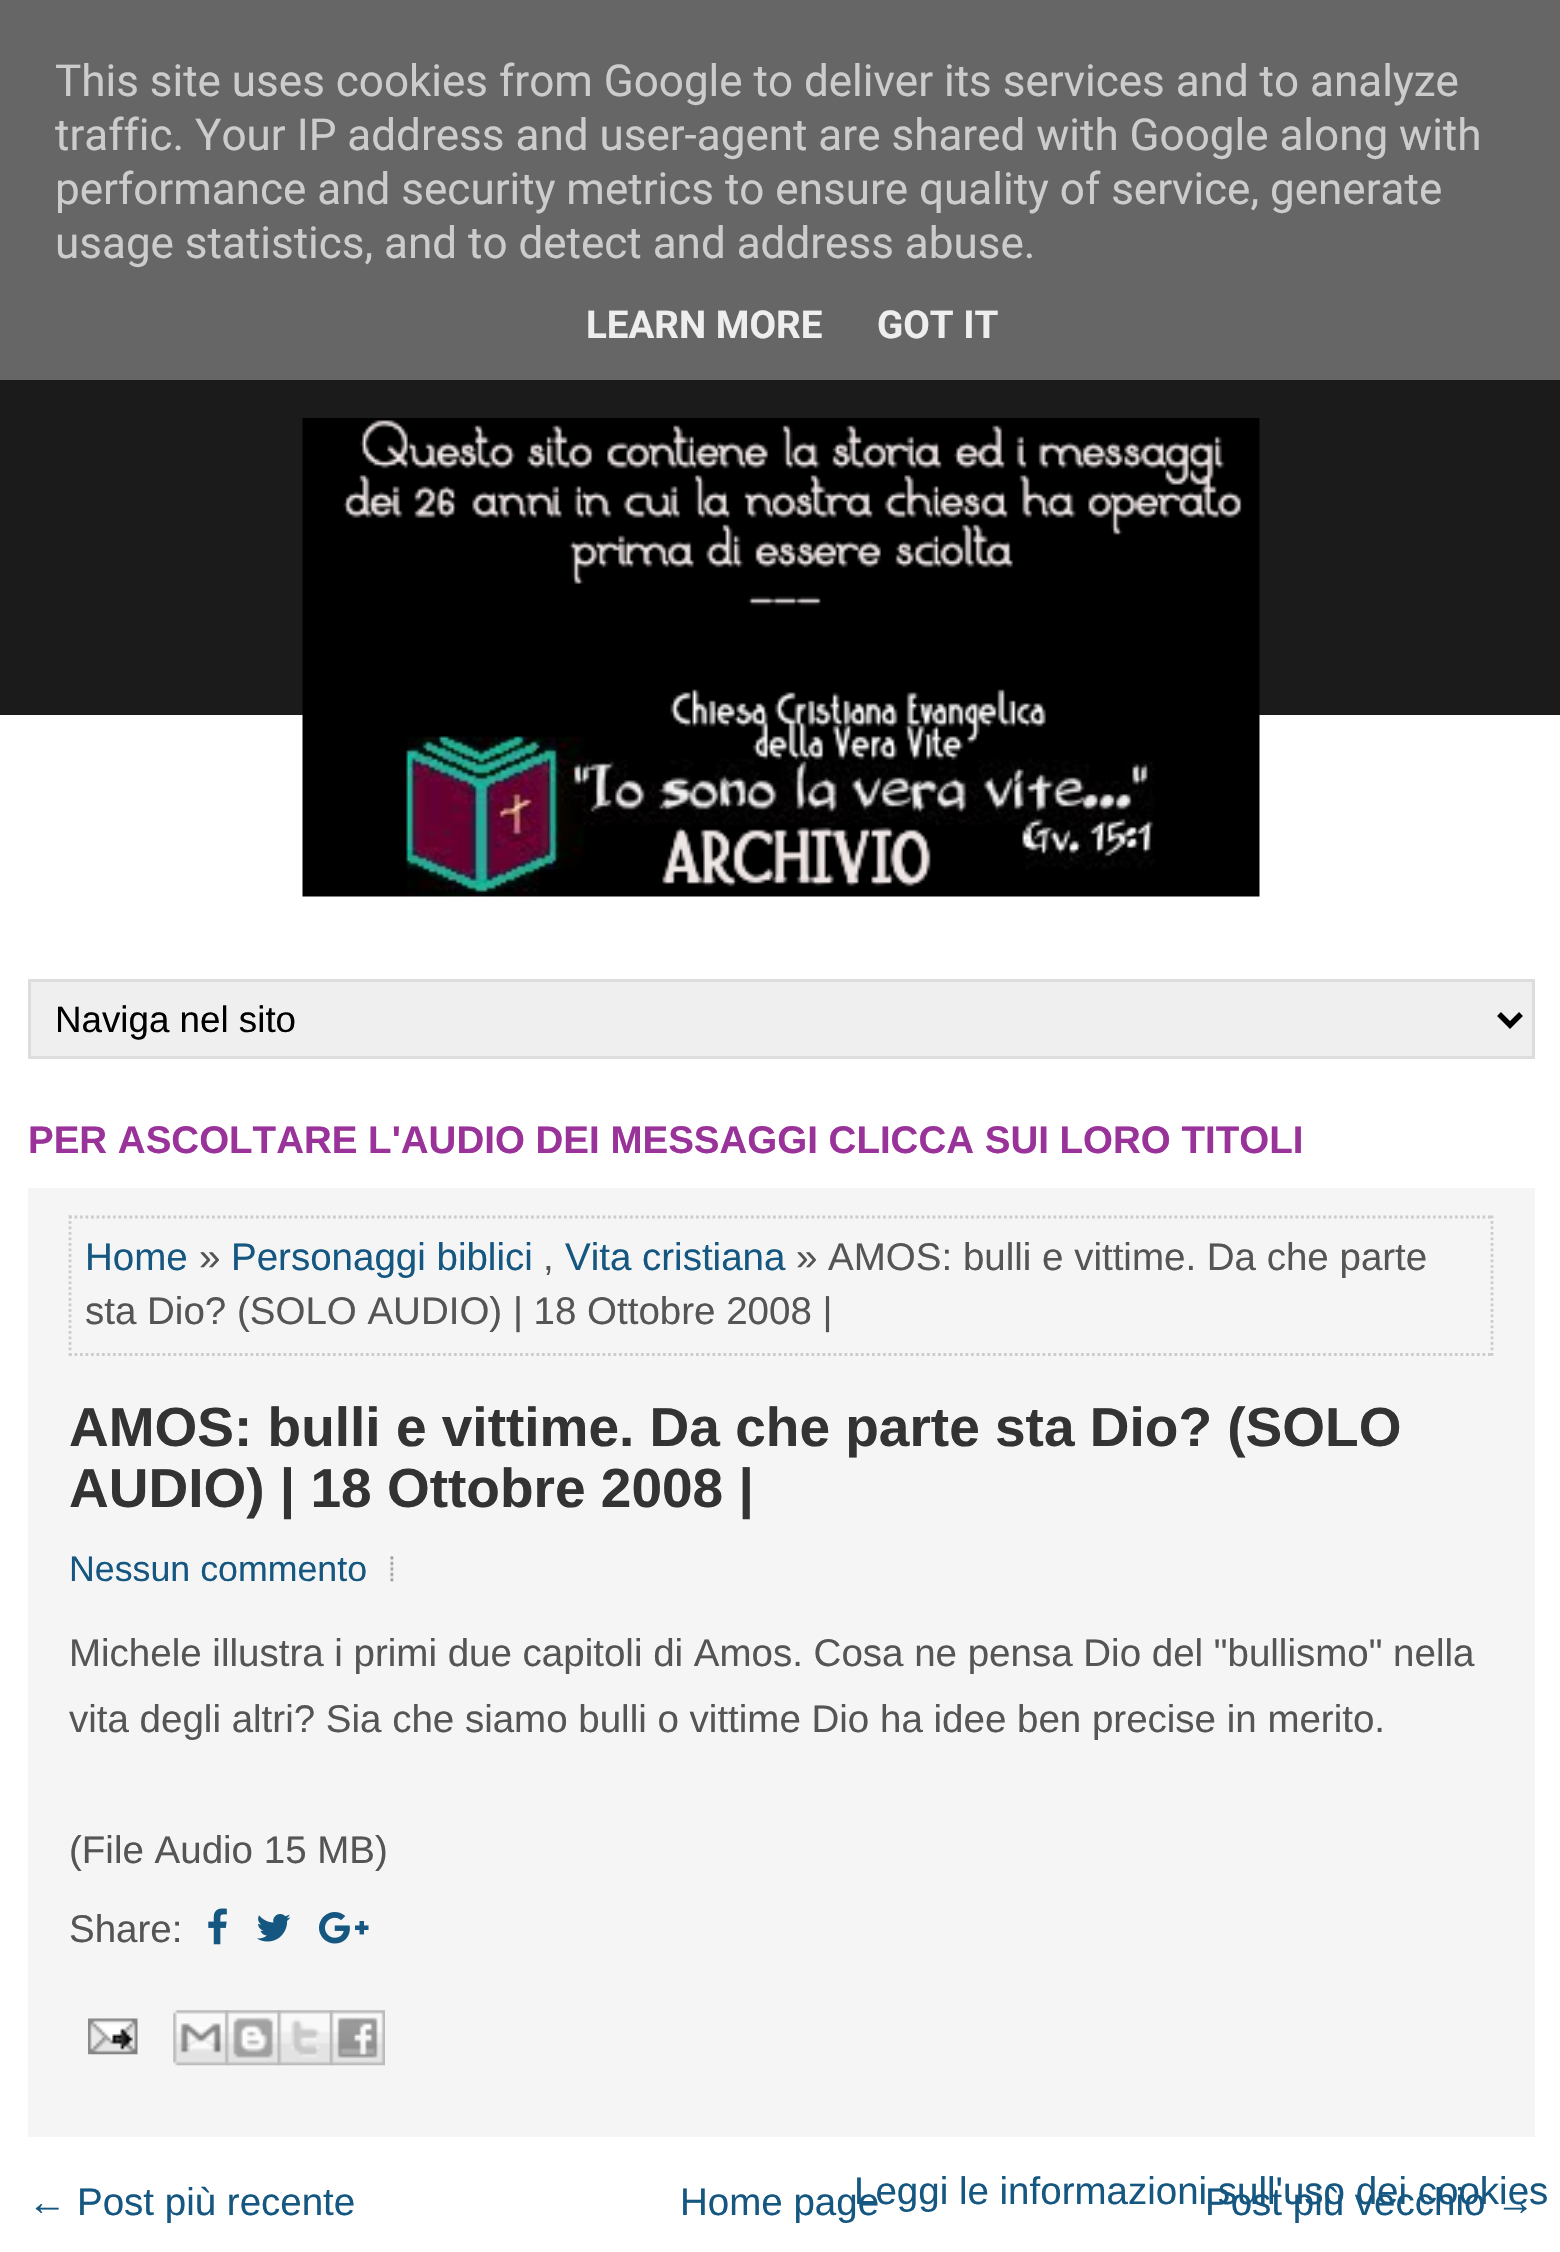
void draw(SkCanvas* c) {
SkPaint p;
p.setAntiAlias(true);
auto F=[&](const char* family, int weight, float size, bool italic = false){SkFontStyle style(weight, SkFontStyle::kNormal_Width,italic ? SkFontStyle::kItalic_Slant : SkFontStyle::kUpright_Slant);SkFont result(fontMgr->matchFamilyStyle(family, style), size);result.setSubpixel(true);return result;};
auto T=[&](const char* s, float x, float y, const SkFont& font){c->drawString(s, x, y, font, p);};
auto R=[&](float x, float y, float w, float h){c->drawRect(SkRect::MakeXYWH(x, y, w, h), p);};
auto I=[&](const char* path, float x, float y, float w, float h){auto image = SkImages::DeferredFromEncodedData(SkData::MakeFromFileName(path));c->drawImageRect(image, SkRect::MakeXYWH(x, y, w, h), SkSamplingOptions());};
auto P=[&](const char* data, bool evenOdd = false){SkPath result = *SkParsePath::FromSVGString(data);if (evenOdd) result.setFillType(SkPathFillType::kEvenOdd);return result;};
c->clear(0xffffffff);
p.setColor(0xff1b1b1b);
R(0,380,1560,335);
p.setColor(0xff666666);
R(0,0,1560,380);
auto f1 = F("Roboto",400,44);
p.setColor(0xffcccccc);
T("This site uses cookies from Google to deliver its services and to analyze",55,96,f1);
T("traffic. Your IP address and user-agent are shared with Google along with",55,150,f1);
T("performance and security metrics to ensure quality of service, generate",55,204,f1);
T("usage statistics, and to detect and address abuse.",55,258,f1);
auto f2 = F("Roboto",700,38.5);
p.setColor(0xffeeeeee);
T("LEARN MORE",586,338,f2);
T("GOT IT",877,338,f2);
I("1.png",302,418,958,479);
p.setColor(0xffefefef);
c->drawRect(SkRect::MakeXYWH(29.5,980.5,1504,77),p);
p.setStroke(true);
p.setStrokeWidth(3);
p.setColor(0xffdddddd);
c->drawRect(SkRect::MakeXYWH(29.5,980.5,1504,77),p);
p.setStrokeWidth(5.5);
p.setColor(0xff000000);
c->drawPath(P("M1499 1014l11 11l11-11"),p);
auto f3 = F("Liberation Sans",400,36.75);
p.setStroke(false);
T("Naviga nel sito",55,1032,f3);
auto f4 = F("Arimo",700,38.5);
p.setColor(0xff993399);
T("PER ASCOLTARE L'AUDIO DEI MESSAGGI CLICCA SUI LORO TITOLI",28,1153,f4);
p.setColor(0xfff5f5f5);
R(28,1188,1507,949);
p.setStroke(true);
p.setStrokeWidth(2.8);
p.setColor(0xffcccccc);
p.setPathEffect(SkDashPathEffect::Make({{2.75f,2.75f}}, 0));
c->drawPath(P("M69 1217h1424"),p);
p.setPathEffect(nullptr);
p.setPathEffect(SkDashPathEffect::Make({{2.75f,2.75f}}, 0));
c->drawPath(P("M1492 1215.5v140.5"),p);
p.setPathEffect(nullptr);
p.setPathEffect(SkDashPathEffect::Make({{2.75f,2.75f}}, 0));
c->drawPath(P("M69 1354.5h1424"),p);
p.setPathEffect(nullptr);
p.setPathEffect(SkDashPathEffect::Make({{2.75f,2.75f}}, 0));
c->drawPath(P("M70 1215.5v140.5"),p);
p.setPathEffect(nullptr);
auto f5 = F("Arimo",400,38.5);
p.setStroke(false);
p.setColor(0xff155780);
T("Home",85,1270,f5);
p.setColor(0xff555555);
T("»",199,1270,f5);
p.setColor(0xff155780);
T("Personaggi biblici",231,1270,f5);
T("Vita cristiana",565,1270,f5);
p.setColor(0xff555555);
T("» AMOS: bulli e vittime. Da che parte",796,1270,f5);
T(",",543,1270,f5);
T("sta Dio? (SOLO AUDIO) | 18 Ottobre 2008 |",85,1324,f5);
auto f6 = F("Arimo",700,55);
p.setColor(0xff333333);
T("AMOS: bulli e vittime. Da che parte sta Dio? (SOLO",69,1446,f6);
T("AUDIO) | 18 Ottobre 2008 |",69,1507,f6);
auto f7 = F("Arimo",400,35.75);
p.setColor(0xff155780);
T("Nessun commento",69,1581,f7);
I("2.png",390,1556,4,26);
p.setColor(0xff555555);
T("Michele illustra i primi due capitoli di Amos. Cosa ne pensa Dio del \"bullismo\" nella",69,1666,f5);
T("vita degli altri? Sia che siamo bulli o vittime Dio ha idee ben precise in merito.",69,1732,f5);
T("(File Audio 15 MB)",69,1863,f5);
T("Share:",69,1942,f5);
I("3.png",208,1908,19,37);
I("4.png",257,1914,34,28);
I("5.png",319,1912,50,32);
I("6.png",88,2018,50,37);
I("7.png",173,2010,56,56);
I("8.png",225,2010,56,56);
I("9.png",277,2010,56,56);
I("10.png",330,2010,55,56);
auto f8 = F("Liberation Sans",400,38.5);
p.setColor(0xff155780);
T("←",28,2215,f8);
T("Post più recente",77,2215,f5);
T("Home page",680,2215,f5);
T("Post più vecchio",1205,2215,f5);
T("→",1496,2215,f8);
T("Leggi le informazioni sull'uso dei cookies",854,2204,f5);
}
